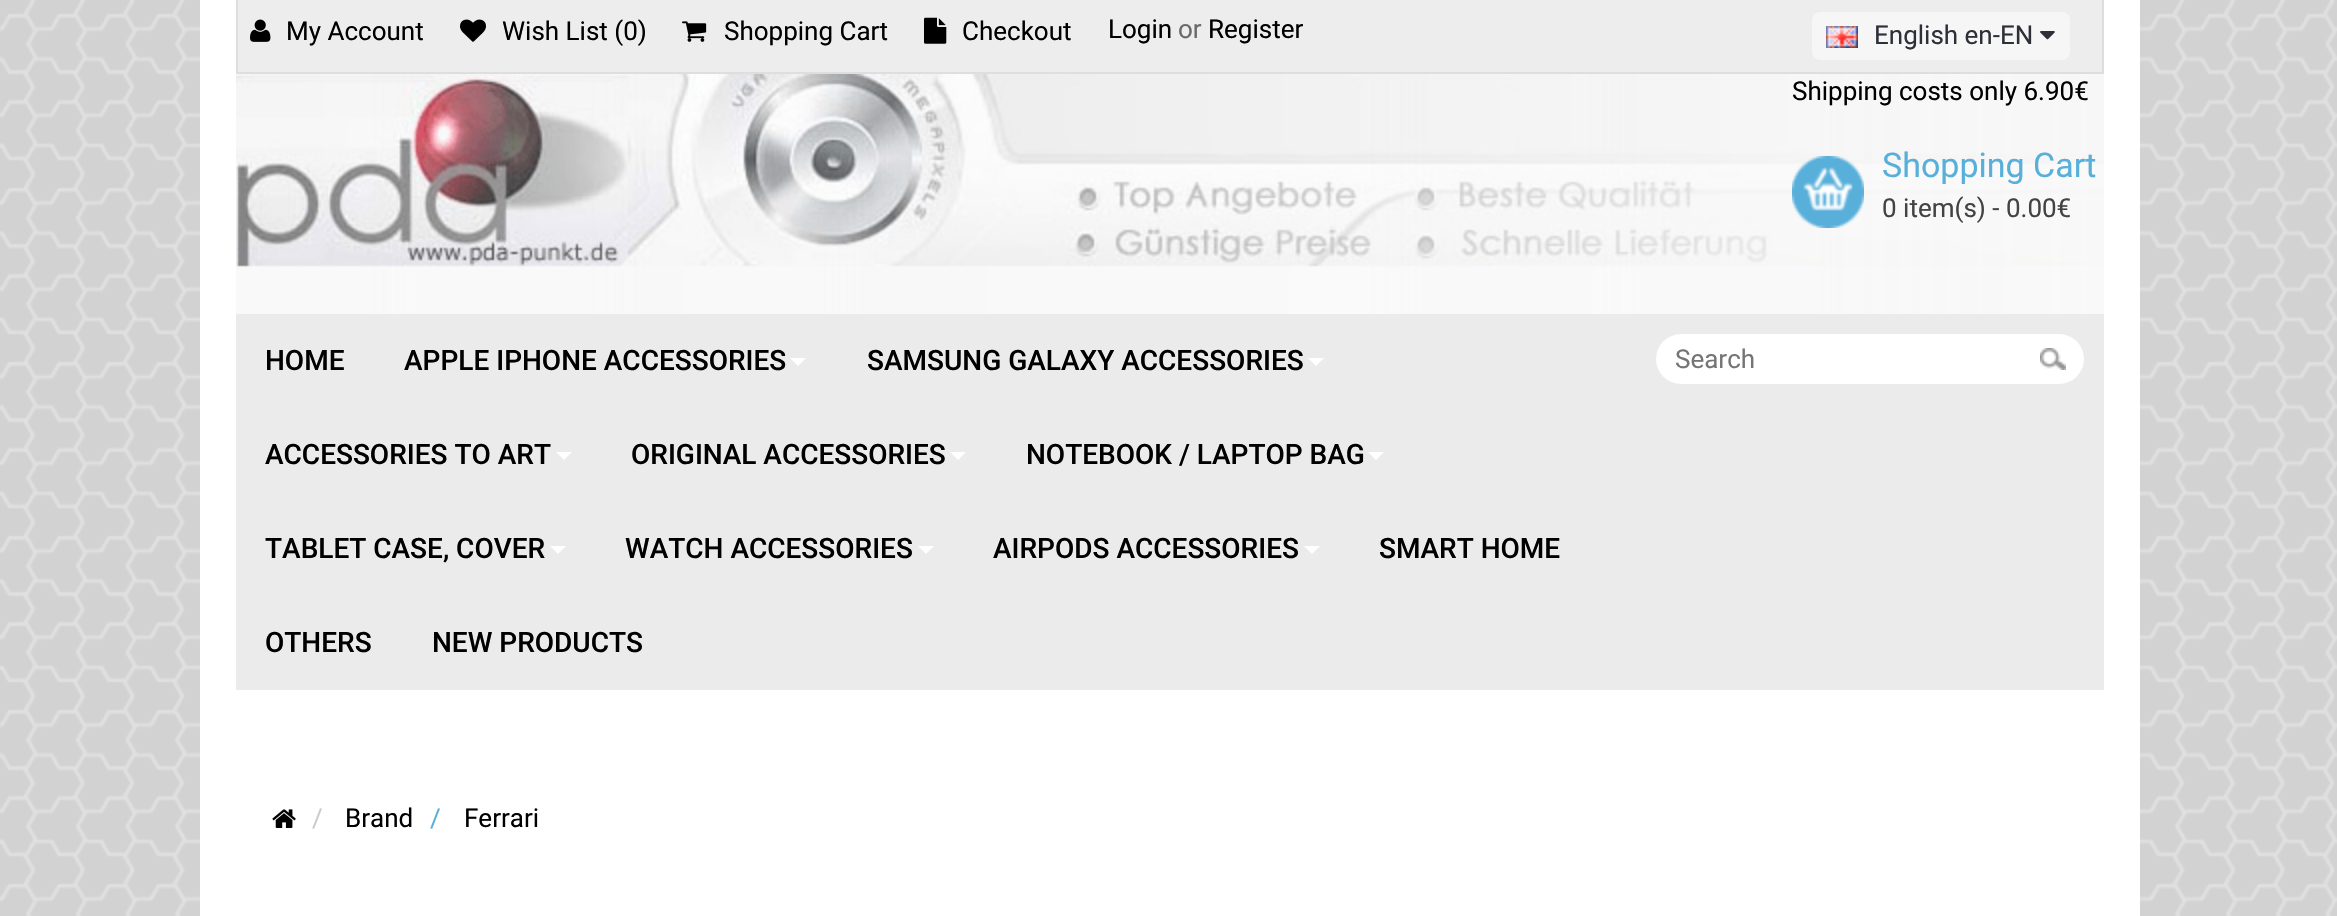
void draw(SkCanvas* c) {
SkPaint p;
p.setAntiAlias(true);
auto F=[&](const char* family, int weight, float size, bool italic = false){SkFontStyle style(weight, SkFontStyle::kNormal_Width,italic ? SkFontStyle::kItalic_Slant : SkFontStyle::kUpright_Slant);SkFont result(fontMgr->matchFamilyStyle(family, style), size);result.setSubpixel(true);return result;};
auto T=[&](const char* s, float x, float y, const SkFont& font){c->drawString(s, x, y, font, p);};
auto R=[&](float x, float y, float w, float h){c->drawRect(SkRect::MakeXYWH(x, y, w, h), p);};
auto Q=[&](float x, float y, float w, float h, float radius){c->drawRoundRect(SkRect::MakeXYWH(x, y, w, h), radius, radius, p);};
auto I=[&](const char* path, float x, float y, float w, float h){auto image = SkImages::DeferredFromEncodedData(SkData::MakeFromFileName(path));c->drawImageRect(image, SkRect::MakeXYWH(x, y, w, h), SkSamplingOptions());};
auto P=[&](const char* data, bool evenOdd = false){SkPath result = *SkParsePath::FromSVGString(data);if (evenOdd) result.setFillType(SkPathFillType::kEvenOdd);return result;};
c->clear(0xffe0e0e0);
I("1.png",0,0,2337,916);
p.setColor(0xffffffff);
R(200,0,1940,916);
p.setColor(0xffededed);
R(238,0,1864,72);
p.setColor(0xffdedede);
R(2102,0,2,74);
R(236,72,1868,2);
R(236,0,2,74);
I("2.png",250,19,21,23);
auto f1 = F("Roboto",400,26);
p.setColor(0xff000000);
T("My Account",286,40,f1);
I("3.png",460,19,26,23);
T("Wish List (0)",502,40,f1);
I("4.png",682,21,25,21);
T("Shopping Cart",724,40,f1);
I("5.png",924,17,23,27);
T("Checkout",962,40,f1);
T("Login",1108,38,f1);
p.setColor(0xff6b6a6b);
T("or",1178,38,f1);
p.setColor(0xff000000);
T("Register",1208,38,f1);
p.setColor(0xfff6f6f6);
Q(1812,12,258,48,8);
I("6.png",1826,26,32,22);
p.setColor(0xff2e3039);
T("English en-EN",1874,44,f1);
I("7.png",2040,31,15,9);
I("8.png",236,74,1868,240);
p.setColor(0xff000000);
T("Shipping costs only 6.90€",1792,100,f1);
I("9.png",1792,156,72,72);
auto f2 = F("Roboto",400,34);
p.setColor(0xff58b0da);
T("Shopping Cart",1882,177,f2);
p.setColor(0xff434343);
T("0 item(s) - 0.00€",1882,217,f1);
p.setColor(0xffebebeb);
R(236,314,1868,376);
auto f3 = F("Roboto",500,28);
p.setColor(0xff000000);
T("HOME",265,370,f3);
T("APPLE IPHONE ACCESSORIES",404,370,f3);
p.setColor(0xffffffff);
c->drawPath(P("M790 358h16l-8 8z"),p);
p.setColor(0xff000000);
T("SAMSUNG GALAXY ACCESSORIES",867,370,f3);
p.setColor(0xffffffff);
c->drawPath(P("M1308 358h16l-8 8z"),p);
p.setColor(0xff000000);
T("ACCESSORIES TO ART",265,464,f3);
p.setColor(0xffffffff);
c->drawPath(P("M556 452h16l-8 8z"),p);
p.setColor(0xff000000);
T("ORIGINAL ACCESSORIES",631,464,f3);
p.setColor(0xffffffff);
c->drawPath(P("M950 452h16l-8 8z"),p);
p.setColor(0xff000000);
T("NOTEBOOK / LAPTOP BAG",1026,464,f3);
p.setColor(0xffffffff);
c->drawPath(P("M1368 452h16l-8 8z"),p);
p.setColor(0xff000000);
T("TABLET CASE, COVER",265,558,f3);
p.setColor(0xffffffff);
c->drawPath(P("M550 546h16l-8 8z"),p);
p.setColor(0xff000000);
T("WATCH ACCESSORIES",625,558,f3);
p.setColor(0xffffffff);
c->drawPath(P("M918 546h16l-8 8z"),p);
p.setColor(0xff000000);
T("AIRPODS ACCESSORIES",993,558,f3);
p.setColor(0xffffffff);
c->drawPath(P("M1304 546h16l-8 8z"),p);
p.setColor(0xff000000);
T("SMART HOME",1379,558,f3);
T("OTHERS",265,652,f3);
T("NEW PRODUCTS",432,652,f3);
p.setColor(0xffffffff);
Q(1656,334,428,50,25);
p.setColor(0xff757575);
T("Search",1675,368,f1);
I("10.png",2040,348,26,22);
I("11.png",272,809,24,19);
p.setColor(0xffcccccc);
T("/",312,827,f1);
p.setColor(0xff000000);
T("Brand",345,827,f1);
p.setColor(0xff58b0da);
T("/",430,827,f1);
p.setColor(0xff000000);
T("Ferrari",464,827,f1);
}
